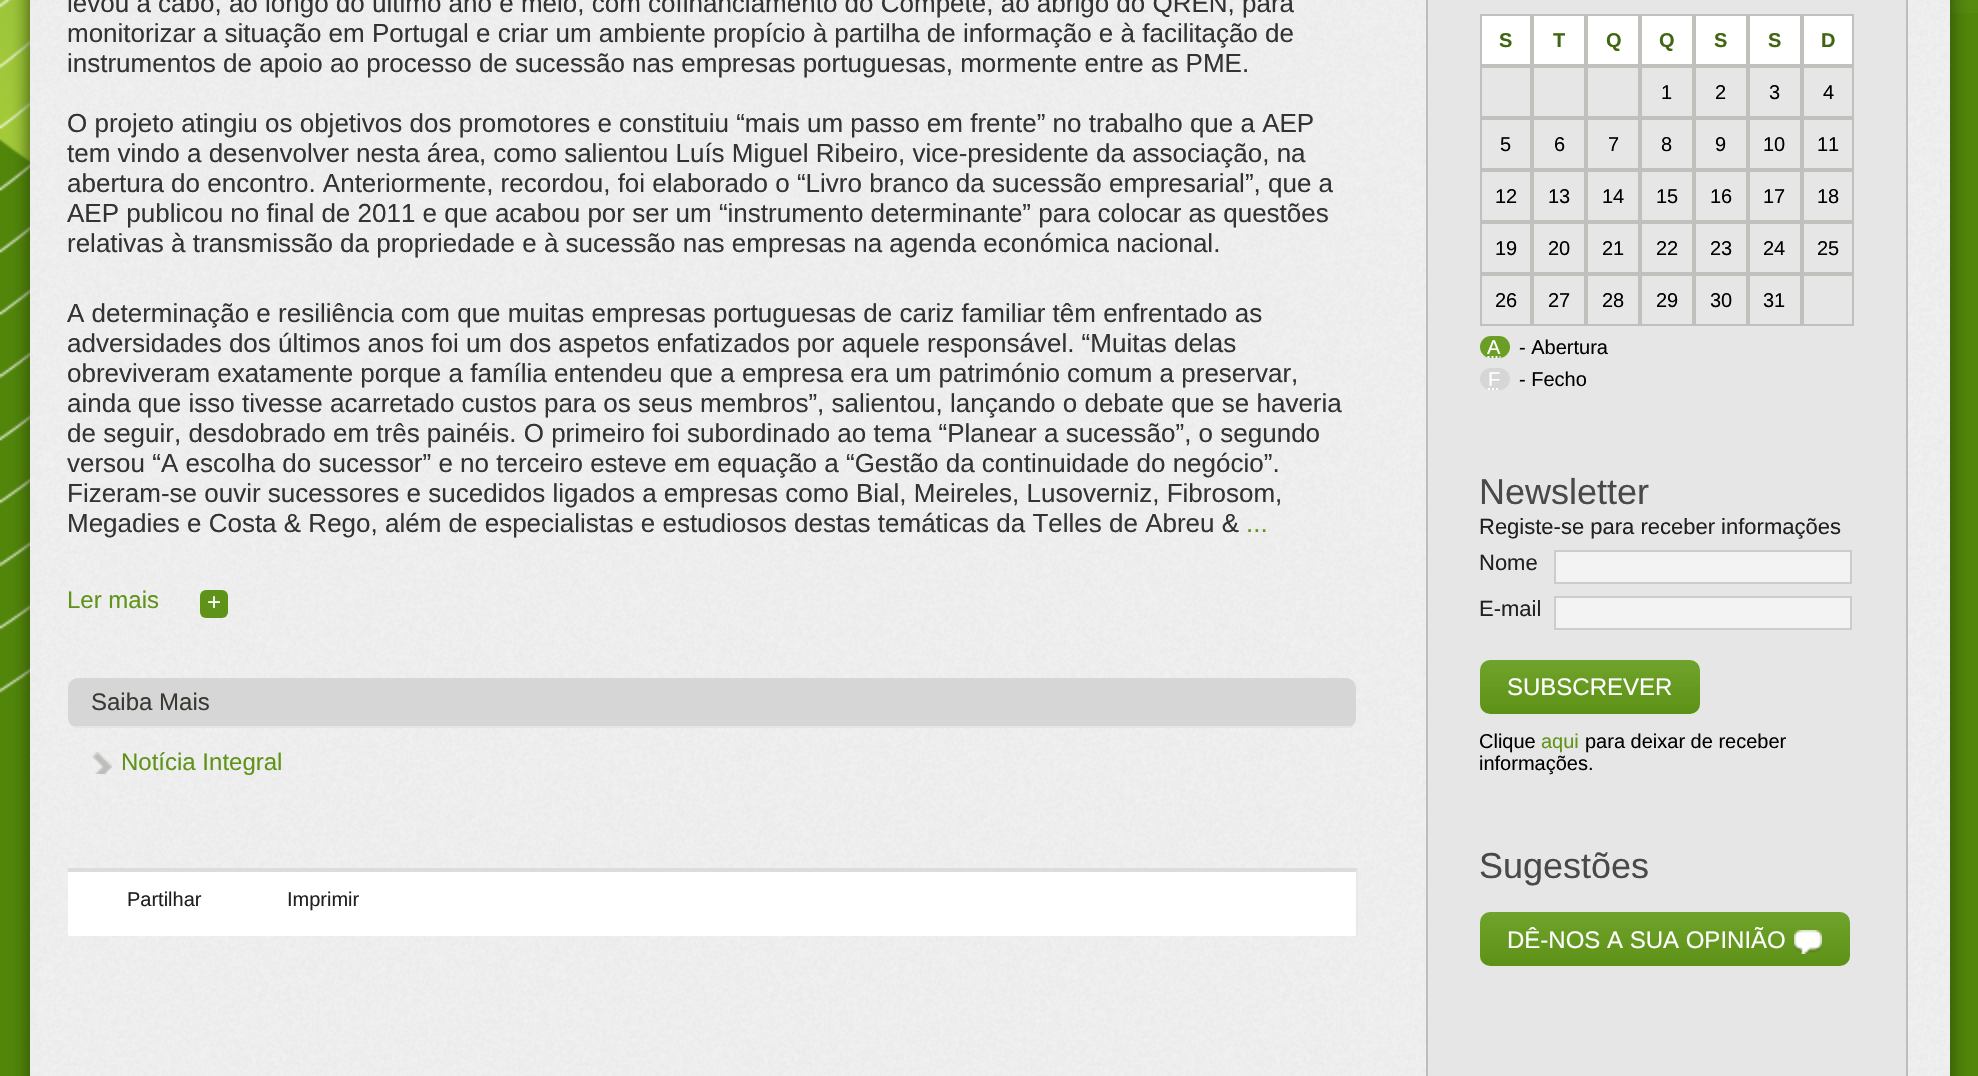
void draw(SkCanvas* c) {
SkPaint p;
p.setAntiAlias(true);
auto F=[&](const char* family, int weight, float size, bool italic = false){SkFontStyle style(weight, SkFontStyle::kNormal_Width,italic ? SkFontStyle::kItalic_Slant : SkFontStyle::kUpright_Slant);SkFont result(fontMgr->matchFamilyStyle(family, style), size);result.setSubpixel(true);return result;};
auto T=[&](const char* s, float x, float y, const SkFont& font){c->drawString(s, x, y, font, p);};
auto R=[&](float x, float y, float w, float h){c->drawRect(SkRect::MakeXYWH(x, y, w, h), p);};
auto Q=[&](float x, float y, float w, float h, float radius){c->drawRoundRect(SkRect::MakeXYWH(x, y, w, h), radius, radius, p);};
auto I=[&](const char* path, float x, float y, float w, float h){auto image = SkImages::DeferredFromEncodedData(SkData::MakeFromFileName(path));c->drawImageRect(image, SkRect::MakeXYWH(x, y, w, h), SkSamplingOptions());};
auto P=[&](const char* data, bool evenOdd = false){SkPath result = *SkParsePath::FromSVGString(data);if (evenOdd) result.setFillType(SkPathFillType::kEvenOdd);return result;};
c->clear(0xff51860a);
p.setColor(0xff558a0f);
R(1950,0,28,13);
I("1.png",0,0,30,693);
p.setColor(0xff2b4705);
p.setMaskFilter(SkMaskFilter::MakeBlur(kNormal_SkBlurStyle, 10));
c->drawRoundRect(SkRect::MakeXYWH(30,-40,1920,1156),10,10,p);
p.setMaskFilter(nullptr);
I("2.png",30,0,1920,1076);
auto f1 = F("Liberation Sans",400,26);
p.setColor(0xff333333);
T("levou a cabo, ao longo do último ano e meio, com cofinanciamento do Compete, ao abrigo do QREN, para",67,12,f1);
T("monitorizar a situação em Portugal e criar um ambiente propício à partilha de informação e à facilitação de",67,42,f1);
T("instrumentos de apoio ao processo de sucessão nas empresas portuguesas, mormente entre as PME.",67,72,f1);
T("O projeto atingiu os objetivos dos promotores e constituiu “mais um passo em frente” no trabalho que a AEP",67,132,f1);
T("tem vindo a desenvolver nesta área, como salientou Luís Miguel Ribeiro, vice-presidente da associação, na",67,162,f1);
T("abertura do encontro. Anteriormente, recordou, foi elaborado o “Livro branco da sucessão empresarial”, que a",67,192,f1);
T("AEP publicou no final de 2011 e que acabou por ser um “instrumento determinante” para colocar as questões",67,222,f1);
T("relativas à transmissão da propriedade e à sucessão nas empresas na agenda económica nacional.",67,252,f1);
T("A determinação e resiliência com que muitas empresas portuguesas de cariz familiar têm enfrentado as",67,322,f1);
T("adversidades dos últimos anos foi um dos aspetos enfatizados por aquele responsável. “Muitas delas",67,352,f1);
T("obreviveram exatamente porque a família entendeu que a empresa era um património comum a preservar,",67,382,f1);
T("ainda que isso tivesse acarretado custos para os seus membros”, salientou, lançando o debate que se haveria",67,412,f1);
T("de seguir, desdobrado em três painéis. O primeiro foi subordinado ao tema “Planear a sucessão”, o segundo",67,442,f1);
T("versou “A escolha do sucessor” e no terceiro esteve em equação a “Gestão da continuidade do negócio”.",67,472,f1);
T("Fizeram-se ouvir sucessores e sucedidos ligados a empresas como Bial, Meireles, Lusoverniz, Fibrosom,",67,502,f1);
T("Megadies e Costa & Rego, além de especialistas e estudiosos destas temáticas da Telles de Abreu &",67,532,f1);
p.setColor(0xff5f9319);
T("...",1246,532,f1);
auto f2 = F("Liberation Sans",400,24);
T("Ler mais",67,608,f2);
p.setColor(0xff5e9218);
Q(200,590,28,28,6);
p.setColor(0xffffffff);
T("+",207,610,f2);
p.setColor(0xffd6d6d6);
Q(68,678,1288,50,10);
p.setColor(0xffe5e5e5);
R(74,726,1278,2);
p.setColor(0xff3c3935);
T("Saiba Mais",91,710,f2);
I("3.png",92,752,20,22);
p.setColor(0xff5f9319);
T("Notícia Integral",121,770,f2);
p.setColor(0xffffffff);
R(68,868,1290,68);
p.setColor(0xffdcdcdc);
c->drawPath(P("M68 868h1290l-2 4h-1288z"),p);
p.setColor(0xffe8e8e8);
c->drawPath(P("M1358 868v68h-2v-64z"),p);
auto f3 = F("Liberation Sans",400,20);
p.setColor(0xff212020);
T("Partilhar",127,906,f3);
T("Imprimir",287,906,f3);
p.setColor(0xffe6e6e6);
R(1428,0,478,1076);
p.setColor(0xffbebdbd);
c->drawPath(P("M1426-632h482v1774c0 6-4 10-10 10h-462c-6 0-10-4-10-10zm2 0h478v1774c0 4-4 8-8 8h-462c-4 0-8-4-8-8z",true),p);
p.setColor(0xffffffff);
c->drawRect(SkRect::MakeXYWH(1481,15,50,50),p);
p.setStroke(true);
p.setStrokeWidth(2);
p.setColor(0xffc2c0bc);
c->drawRect(SkRect::MakeXYWH(1481,15,50,50),p);
auto f4 = F("Liberation Sans",700,20);
p.setStroke(false);
p.setColor(0xff416611);
T("S",1499,47,f4);
p.setColor(0xffffffff);
c->drawRect(SkRect::MakeXYWH(1533,15,52,50),p);
p.setStroke(true);
p.setColor(0xffc2c0bc);
c->drawRect(SkRect::MakeXYWH(1533,15,52,50),p);
p.setStroke(false);
p.setColor(0xff416611);
T("T",1553,47,f4);
p.setColor(0xffffffff);
c->drawRect(SkRect::MakeXYWH(1587,15,52,50),p);
p.setStroke(true);
p.setColor(0xffc2c0bc);
c->drawRect(SkRect::MakeXYWH(1587,15,52,50),p);
p.setStroke(false);
p.setColor(0xff416611);
T("Q",1606,47,f4);
p.setColor(0xffffffff);
c->drawRect(SkRect::MakeXYWH(1641,15,52,50),p);
p.setStroke(true);
p.setColor(0xffc2c0bc);
c->drawRect(SkRect::MakeXYWH(1641,15,52,50),p);
p.setStroke(false);
p.setColor(0xff416611);
T("Q",1659,47,f4);
p.setColor(0xffffffff);
c->drawRect(SkRect::MakeXYWH(1695,15,52,50),p);
p.setStroke(true);
p.setColor(0xffc2c0bc);
c->drawRect(SkRect::MakeXYWH(1695,15,52,50),p);
p.setStroke(false);
p.setColor(0xff416611);
T("S",1714,47,f4);
p.setColor(0xffffffff);
c->drawRect(SkRect::MakeXYWH(1749,15,52,50),p);
p.setStroke(true);
p.setColor(0xffc2c0bc);
c->drawRect(SkRect::MakeXYWH(1749,15,52,50),p);
p.setStroke(false);
p.setColor(0xff416611);
T("S",1768,47,f4);
p.setColor(0xffffffff);
c->drawRect(SkRect::MakeXYWH(1803,15,50,50),p);
p.setStroke(true);
p.setColor(0xffc2c0bc);
c->drawRect(SkRect::MakeXYWH(1803,15,50,50),p);
p.setStroke(false);
p.setColor(0xff416611);
T("D",1821,47,f4);
p.setStroke(true);
p.setColor(0xffc2c0bc);
c->drawRect(SkRect::MakeXYWH(1481,67,50,50),p);
c->drawRect(SkRect::MakeXYWH(1533,67,52,50),p);
c->drawRect(SkRect::MakeXYWH(1587,67,52,50),p);
c->drawRect(SkRect::MakeXYWH(1641,67,52,50),p);
p.setStroke(false);
p.setColor(0xff000000);
T("1",1661,99,f3);
p.setStroke(true);
p.setColor(0xffc2c0bc);
c->drawRect(SkRect::MakeXYWH(1695,67,52,50),p);
p.setStroke(false);
p.setColor(0xff000000);
T("2",1715,99,f3);
p.setStroke(true);
p.setColor(0xffc2c0bc);
c->drawRect(SkRect::MakeXYWH(1749,67,52,50),p);
p.setStroke(false);
p.setColor(0xff000000);
T("3",1769,99,f3);
p.setStroke(true);
p.setColor(0xffc2c0bc);
c->drawRect(SkRect::MakeXYWH(1803,67,50,50),p);
p.setStroke(false);
p.setColor(0xff000000);
T("4",1823,99,f3);
p.setStroke(true);
p.setColor(0xffc2c0bc);
c->drawRect(SkRect::MakeXYWH(1481,119,50,50),p);
p.setStroke(false);
p.setColor(0xff000000);
T("5",1500,151,f3);
p.setStroke(true);
p.setColor(0xffc2c0bc);
c->drawRect(SkRect::MakeXYWH(1533,119,52,50),p);
p.setStroke(false);
p.setColor(0xff000000);
T("6",1554,151,f3);
p.setStroke(true);
p.setColor(0xffc2c0bc);
c->drawRect(SkRect::MakeXYWH(1587,119,52,50),p);
p.setStroke(false);
p.setColor(0xff000000);
T("7",1608,151,f3);
p.setStroke(true);
p.setColor(0xffc2c0bc);
c->drawRect(SkRect::MakeXYWH(1641,119,52,50),p);
p.setStroke(false);
p.setColor(0xff000000);
T("8",1661,151,f3);
p.setStroke(true);
p.setColor(0xffc2c0bc);
c->drawRect(SkRect::MakeXYWH(1695,119,52,50),p);
p.setStroke(false);
p.setColor(0xff000000);
T("9",1715,151,f3);
p.setStroke(true);
p.setColor(0xffc2c0bc);
c->drawRect(SkRect::MakeXYWH(1749,119,52,50),p);
p.setStroke(false);
p.setColor(0xff000000);
T("10",1763,151,f3);
p.setStroke(true);
p.setColor(0xffc2c0bc);
c->drawRect(SkRect::MakeXYWH(1803,119,50,50),p);
p.setStroke(false);
p.setColor(0xff000000);
T("11",1817,151,f3);
p.setStroke(true);
p.setColor(0xffc2c0bc);
c->drawRect(SkRect::MakeXYWH(1481,171,50,50),p);
p.setStroke(false);
p.setColor(0xff000000);
T("12",1495,203,f3);
p.setStroke(true);
p.setColor(0xffc2c0bc);
c->drawRect(SkRect::MakeXYWH(1533,171,52,50),p);
p.setStroke(false);
p.setColor(0xff000000);
T("13",1548,203,f3);
p.setStroke(true);
p.setColor(0xffc2c0bc);
c->drawRect(SkRect::MakeXYWH(1587,171,52,50),p);
p.setStroke(false);
p.setColor(0xff000000);
T("14",1602,203,f3);
p.setStroke(true);
p.setColor(0xffc2c0bc);
c->drawRect(SkRect::MakeXYWH(1641,171,52,50),p);
p.setStroke(false);
p.setColor(0xff000000);
T("15",1656,203,f3);
p.setStroke(true);
p.setColor(0xffc2c0bc);
c->drawRect(SkRect::MakeXYWH(1695,171,52,50),p);
p.setStroke(false);
p.setColor(0xff000000);
T("16",1710,203,f3);
p.setStroke(true);
p.setColor(0xffc2c0bc);
c->drawRect(SkRect::MakeXYWH(1749,171,52,50),p);
p.setStroke(false);
p.setColor(0xff000000);
T("17",1763,203,f3);
p.setStroke(true);
p.setColor(0xffc2c0bc);
c->drawRect(SkRect::MakeXYWH(1803,171,50,50),p);
p.setStroke(false);
p.setColor(0xff000000);
T("18",1817,203,f3);
p.setStroke(true);
p.setColor(0xffc2c0bc);
c->drawRect(SkRect::MakeXYWH(1481,223,50,50),p);
p.setStroke(false);
p.setColor(0xff000000);
T("19",1495,255,f3);
p.setStroke(true);
p.setColor(0xffc2c0bc);
c->drawRect(SkRect::MakeXYWH(1533,223,52,50),p);
p.setStroke(false);
p.setColor(0xff000000);
T("20",1548,255,f3);
p.setStroke(true);
p.setColor(0xffc2c0bc);
c->drawRect(SkRect::MakeXYWH(1587,223,52,50),p);
p.setStroke(false);
p.setColor(0xff000000);
T("21",1602,255,f3);
p.setStroke(true);
p.setColor(0xffc2c0bc);
c->drawRect(SkRect::MakeXYWH(1641,223,52,50),p);
p.setStroke(false);
p.setColor(0xff000000);
T("22",1656,255,f3);
p.setStroke(true);
p.setColor(0xffc2c0bc);
c->drawRect(SkRect::MakeXYWH(1695,223,52,50),p);
p.setStroke(false);
p.setColor(0xff000000);
T("23",1710,255,f3);
p.setStroke(true);
p.setColor(0xffc2c0bc);
c->drawRect(SkRect::MakeXYWH(1749,223,52,50),p);
p.setStroke(false);
p.setColor(0xff000000);
T("24",1763,255,f3);
p.setStroke(true);
p.setColor(0xffc2c0bc);
c->drawRect(SkRect::MakeXYWH(1803,223,50,50),p);
p.setStroke(false);
p.setColor(0xff000000);
T("25",1817,255,f3);
p.setStroke(true);
p.setColor(0xffc2c0bc);
c->drawRect(SkRect::MakeXYWH(1481,275,50,50),p);
p.setStroke(false);
p.setColor(0xff000000);
T("26",1495,307,f3);
p.setStroke(true);
p.setColor(0xffc2c0bc);
c->drawRect(SkRect::MakeXYWH(1533,275,52,50),p);
p.setStroke(false);
p.setColor(0xff000000);
T("27",1548,307,f3);
p.setStroke(true);
p.setColor(0xffc2c0bc);
c->drawRect(SkRect::MakeXYWH(1587,275,52,50),p);
p.setStroke(false);
p.setColor(0xff000000);
T("28",1602,307,f3);
p.setStroke(true);
p.setColor(0xffc2c0bc);
c->drawRect(SkRect::MakeXYWH(1641,275,52,50),p);
p.setStroke(false);
p.setColor(0xff000000);
T("29",1656,307,f3);
p.setStroke(true);
p.setColor(0xffc2c0bc);
c->drawRect(SkRect::MakeXYWH(1695,275,52,50),p);
p.setStroke(false);
p.setColor(0xff000000);
T("30",1710,307,f3);
p.setStroke(true);
p.setColor(0xffc2c0bc);
c->drawRect(SkRect::MakeXYWH(1749,275,52,50),p);
p.setStroke(false);
p.setColor(0xff000000);
T("31",1763,307,f3);
p.setStroke(true);
p.setColor(0xffc2c0bc);
c->drawRect(SkRect::MakeXYWH(1803,275,50,50),p);
p.setStroke(false);
p.setColor(0xff6a9e25);
Q(1480,336,30,22,11);
p.setColor(0xffffffff);
T("A",1487,354,f3);
p.setStroke(true);
c->drawPath(P("M1487.5 357h2m2 0h2m2 0h2m2 0h1"),p);
p.setStroke(false);
p.setColor(0xff000000);
T("- Abertura",1519,354,f3);
p.setColor(0xffd6d6d6);
Q(1480,368,30,22,11);
p.setColor(0xffffffff);
T("F",1488,386,f3);
p.setStroke(true);
c->drawPath(P("M1488 389h2m2 0h2m2 0h2m2 0h0"),p);
p.setStroke(false);
p.setColor(0xff000000);
T("- Fecho",1519,386,f3);
auto f5 = F("Liberation Sans",400,36);
p.setColor(0xff4a4949);
T("Newsletter",1479,504,f5);
auto f6 = F("Liberation Sans",400,22);
p.setColor(0xff212020);
T("Registe-se para receber informações",1479,534,f6);
T("Nome",1479,570,f6);
p.setColor(0xfff4f3f3);
c->drawRect(SkRect::MakeXYWH(1555,551,296,32),p);
p.setStroke(true);
p.setColor(0xffcccccc);
c->drawRect(SkRect::MakeXYWH(1555,551,296,32),p);
p.setStroke(false);
p.setColor(0xff212020);
T("E-mail",1479,616,f6);
p.setColor(0xfff4f3f3);
c->drawRect(SkRect::MakeXYWH(1555,597,296,32),p);
p.setStroke(true);
p.setColor(0xffcccccc);
c->drawRect(SkRect::MakeXYWH(1555,597,296,32),p);
I("4.png",1480,660,220,54);
p.setStroke(false);
p.setColor(0xffffffff);
T("SUBSCREVER",1507,695,f2);
p.setColor(0xff000000);
T("Clique",1479,748,f3);
p.setColor(0xff5f9319);
T("aqui",1541,748,f3);
p.setColor(0xff000000);
T("para deixar de receber",1585,748,f3);
T("informações.",1479,770,f3);
p.setColor(0xff4a4949);
T("Sugestões",1479,878,f5);
I("5.png",1480,912,370,54);
p.setColor(0xffffffff);
T("DÊ-NOS A SUA OPINIÃO",1507,948,f2);
I("6.png",1794,930,28,24);
}
